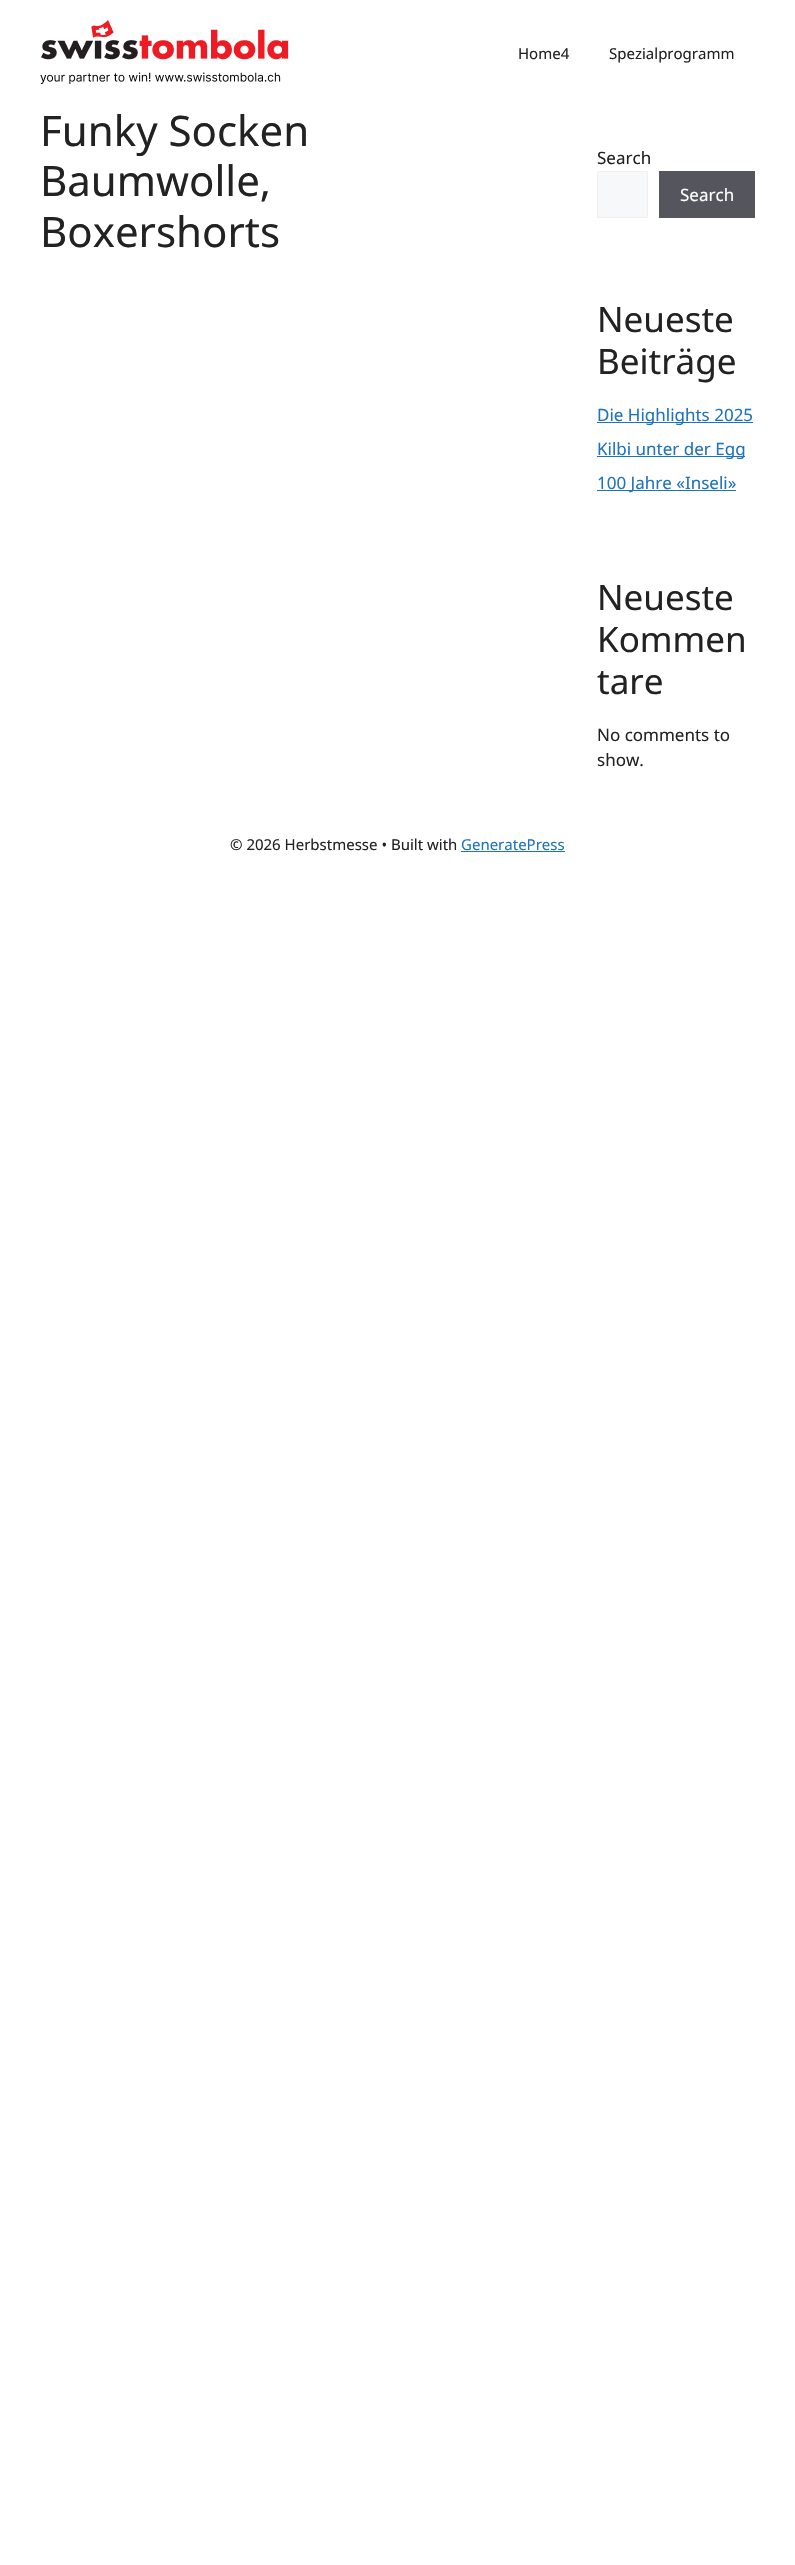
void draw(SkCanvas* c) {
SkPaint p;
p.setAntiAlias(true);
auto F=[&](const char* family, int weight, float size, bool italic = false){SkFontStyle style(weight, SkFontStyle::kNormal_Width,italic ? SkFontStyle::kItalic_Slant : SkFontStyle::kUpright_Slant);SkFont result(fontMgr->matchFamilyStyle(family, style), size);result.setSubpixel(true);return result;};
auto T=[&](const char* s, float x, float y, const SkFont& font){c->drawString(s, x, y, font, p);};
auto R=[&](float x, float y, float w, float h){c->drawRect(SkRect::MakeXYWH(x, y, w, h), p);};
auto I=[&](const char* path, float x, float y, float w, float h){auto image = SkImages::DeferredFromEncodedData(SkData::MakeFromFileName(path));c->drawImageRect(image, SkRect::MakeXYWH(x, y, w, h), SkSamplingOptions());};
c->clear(0xffffffff);
I("1.png",40,20,249,64);
auto f1 = F("Noto Sans",400,15);
p.setColor(0xff222222);
T("Home4",518,59,f1);
T("Spezialprogramm",609,59,f1);
auto f2 = F("Noto Sans",400,42);
T("Funky Socken",40,146,f2);
T("Baumwolle,",40,196,f2);
T("Boxershorts",40,247,f2);
auto f3 = F("Noto Sans",400,17);
T("Search",597,164,f3);
p.setColor(0xfff7f8f9);
c->drawRect(SkRect::MakeXYWH(597.5,171.5,50,46),p);
p.setStroke(true);
p.setStrokeWidth(1);
p.setColor(0xfff0f0f0);
c->drawRect(SkRect::MakeXYWH(597.5,171.5,50,46),p);
p.setStroke(false);
p.setColor(0xff55555e);
R(659,171,96,47);
p.setColor(0xffffffff);
T("Search",680,201,f3);
auto f4 = F("Noto Sans",400,35);
p.setColor(0xff222222);
T("Neueste",597,332,f4);
T("Beiträge",597,374,f4);
p.setColor(0xff1e73be);
R(597,422,156,1);
T("Die Highlights 2025",597,421,f3);
R(597,456,148,1);
T("Kilbi unter der Egg",597,455,f3);
R(597,490,139,1);
T("100 Jahre «Inseli»",597,489,f3);
p.setColor(0xff222222);
T("Neueste",597,610,f4);
T("Kommen",597,652,f4);
T("tare",597,694,f4);
T("No comments to",597,741,f3);
T("show.",597,766,f3);
T("© 2026 Herbstmesse • Built with",230,850,f1);
p.setColor(0xff1e73be);
T("GeneratePress",461,850,f1);
R(461,851,104,1);
}
